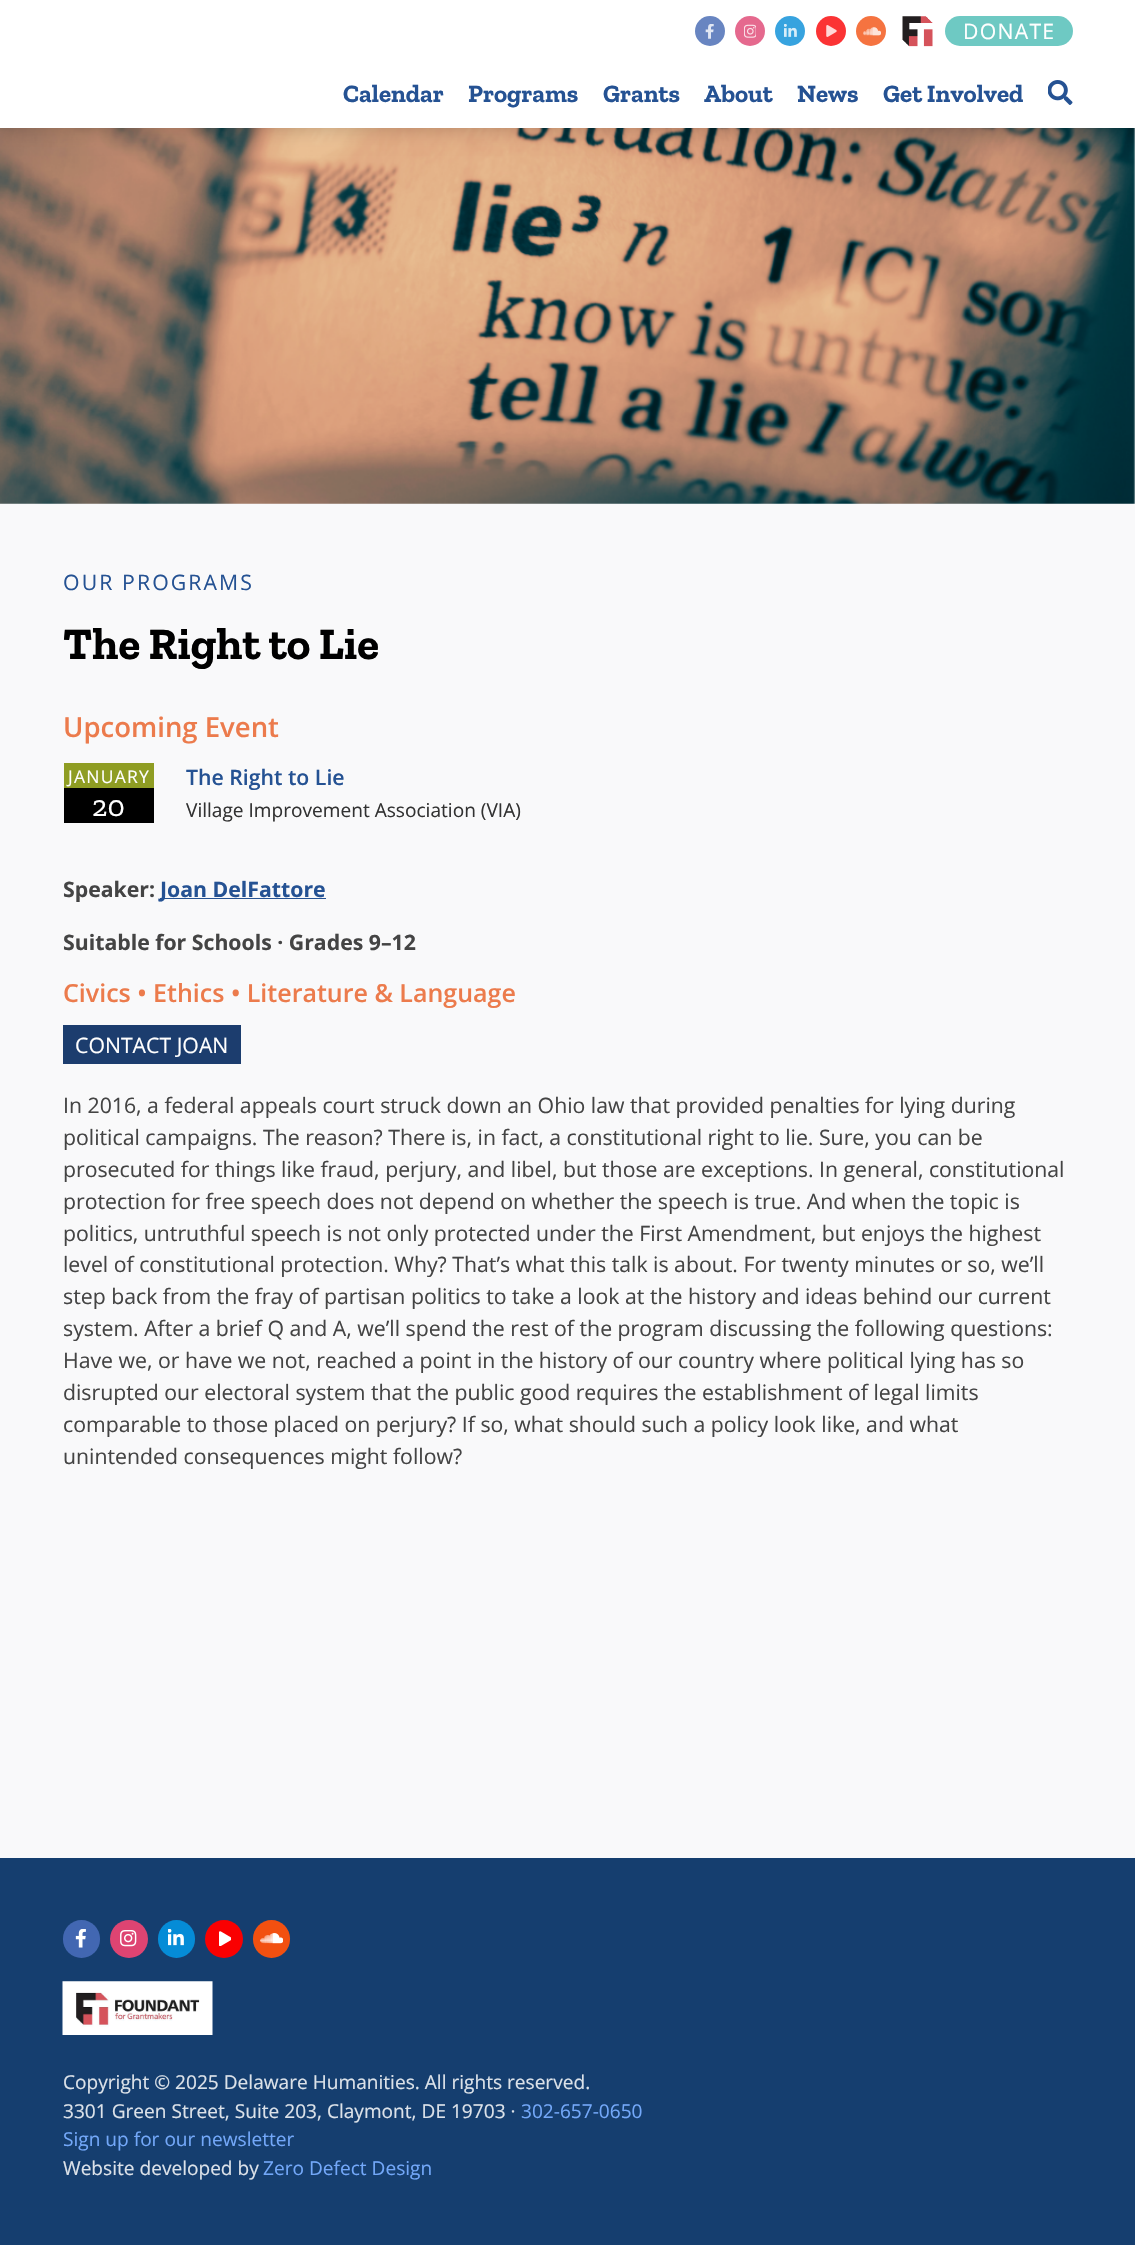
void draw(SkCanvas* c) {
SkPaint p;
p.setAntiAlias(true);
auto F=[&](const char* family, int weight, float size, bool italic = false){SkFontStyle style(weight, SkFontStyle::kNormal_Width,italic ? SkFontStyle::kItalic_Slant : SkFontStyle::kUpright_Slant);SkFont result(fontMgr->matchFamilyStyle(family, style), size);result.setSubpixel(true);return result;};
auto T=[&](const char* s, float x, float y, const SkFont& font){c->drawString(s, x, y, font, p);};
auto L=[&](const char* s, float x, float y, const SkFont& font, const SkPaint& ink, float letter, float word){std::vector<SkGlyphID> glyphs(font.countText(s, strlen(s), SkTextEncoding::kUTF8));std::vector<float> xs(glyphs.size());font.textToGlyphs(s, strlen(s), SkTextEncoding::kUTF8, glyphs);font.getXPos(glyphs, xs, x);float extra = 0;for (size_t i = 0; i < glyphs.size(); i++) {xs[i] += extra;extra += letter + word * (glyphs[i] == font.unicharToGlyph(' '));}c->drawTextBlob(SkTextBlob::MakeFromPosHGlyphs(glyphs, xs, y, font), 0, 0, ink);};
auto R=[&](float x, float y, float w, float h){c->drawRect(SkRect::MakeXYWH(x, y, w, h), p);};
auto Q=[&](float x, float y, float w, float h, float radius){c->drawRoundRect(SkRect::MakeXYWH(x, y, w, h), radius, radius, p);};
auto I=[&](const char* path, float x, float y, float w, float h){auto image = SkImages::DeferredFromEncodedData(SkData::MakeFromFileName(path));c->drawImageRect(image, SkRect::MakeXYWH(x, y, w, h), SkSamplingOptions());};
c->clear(0xfff9f9fa);
I("8.png",0,128,1135,376);
p.setColor(0x33000000);
p.setMaskFilter(SkMaskFilter::MakeBlur(kNormal_SkBlurStyle, 9.5));
c->drawRect(SkRect::MakeXYWH(0,0,1135,128),p);
p.setMaskFilter(nullptr);
p.setColor(0xffffffff);
R(0,0,1135,128);
p.setColor(0xff6885c1);
c->drawCircle(710,31,15,p);
I("1.png",705,24,9,15);
p.setColor(0xffe5698e);
c->drawCircle(750,31,15,p);
I("2.png",744,24,12,14);
p.setColor(0xff37a3df);
c->drawCircle(790,31,15,p);
I("3.png",784,24,13,13);
p.setColor(0xfffb3334);
c->drawCircle(831,31,15,p);
I("4.png",826,25,11,12);
p.setColor(0xfff57340);
c->drawCircle(871,31,15,p);
I("5.png",863,27,18,9);
I("6.png",902,16,31,31);
p.setColor(0xff6ec9c3);
Q(945,16,128,30,15);
auto f1 = F("Open Sans",400,21.25);
p.setColor(0xffffffff);
L("DONATE",963,39,f1,p,1.25,0);
auto f2 = F("Zilla Slab",700,25);
p.setColor(0xff255293);
T("Calendar",343,102,f2);
T("Programs",468,102,f2);
T("Grants",603,102,f2);
T("About",704,102,f2);
T("News",797,102,f2);
T("Get Involved",883,102,f2);
I("7.png",1048,80,25,25);
L("OUR PROGRAMS",63,590,f1,p,2.1,0);
auto f3 = F("Zilla Slab",700,45);
p.setColor(0xff000000);
T("The Right to Lie",63,659,f3);
auto f4 = F("Open Sans",600,27.5);
p.setColor(0xffec7b4c);
T("Upcoming Event",63,737,f4);
p.setColor(0xff000000);
R(64,788,90,35);
p.setColor(0xff8f9d23);
R(64,763,90,25);
auto f5 = F("Open Sans",400,17.5);
p.setColor(0xffffffff);
L("JANUARY",68,783,f5,p,1.25,0);
auto f6 = F("Zilla Slab",400,30);
T("20",92,816,f6);
auto f7 = F("Open Sans",600,21.25);
p.setColor(0xff255293);
T("The Right to Lie",186,785,f7);
auto f8 = F("Open Sans",400,19.1);
p.setColor(0xff323232);
T("Village Improvement Association (VIA)",186,817,f8);
auto f9 = F("Open Sans",700,21.25);
p.setColor(0xff444444);
T("Speaker:",63,897,f9);
p.setColor(0xff255293);
R(160,898,166,1);
T("Joan DelFattore",160,897,f9);
p.setColor(0xff444444);
T("Suitable for Schools · Grades 9–12",63,950,f9);
auto f10 = F("Open Sans",600,25);
p.setColor(0xffec7b4c);
T("Civics • Ethics • Literature & Language",63,1002,f10);
p.setColor(0xff1c3d6e);
R(63,1025,178,39);
p.setColor(0xffffffff);
T("CONTACT JOAN",75,1053,f1);
p.setColor(0xff444444);
T("In 2016, a federal appeals court struck down an Ohio law that provided penalties for lying during",63,1113,f1);
T("political campaigns. The reason? There is, in fact, a constitutional right to lie. Sure, you can be",63,1145,f1);
T("prosecuted for things like fraud, perjury, and libel, but those are exceptions. In general, constitutional",63,1177,f1);
T("protection for free speech does not depend on whether the speech is true. And when the topic is",63,1209,f1);
T("politics, untruthful speech is not only protected under the First Amendment, but enjoys the highest",63,1241,f1);
T("level of constitutional protection. Why? That’s what this talk is about. For twenty minutes or so, we’ll",63,1272,f1);
T("step back from the fray of partisan politics to take a look at the history and ideas behind our current",63,1304,f1);
T("system. After a brief Q and A, we’ll spend the rest of the program discussing the following questions:",63,1336,f1);
T("Have we, or have we not, reached a point in the history of our country where political lying has so",63,1368,f1);
T("disrupted our electoral system that the public good requires the establishment of legal limits",63,1400,f1);
T("comparable to those placed on perjury? If so, what should such a policy look like, and what",63,1432,f1);
T("unintended consequences might follow?",63,1464,f1);
p.setColor(0xff153e6f);
R(0,1858,1135,387);
p.setColor(0xff4267b2);
Q(63,1920,37,38,18.5);
I("9.png",75,1929,11,19);
p.setColor(0xffde4472);
c->drawCircle(129,1939,19,p);
I("10.png",120,1930,17,17);
p.setColor(0xff058cd7);
Q(158,1920,37,38,18.5);
I("11.png",168,1929,16,17);
p.setColor(0xfffa0001);
c->drawCircle(224,1939,19,p);
I("12.png",219,1931,12,15);
p.setColor(0xfff25010);
Q(253,1920,37,38,18.5);
I("13.png",260,1933,23,11);
I("14.png",62,1981,151,54);
p.setColor(0xffdce2e9);
T("Copyright © 2025 Delaware Humanities. All rights reserved.",63,2089,f8);
T("3301 Green Street, Suite 203, Claymont, DE 19703 ·",63,2118,f8);
p.setColor(0xff73a8f9);
T("302-657-0650",521,2118,f8);
T("Sign up for our newsletter",63,2146,f8);
p.setColor(0xffdce2e9);
T("Website developed by",63,2175,f8);
p.setColor(0xff73a8f9);
T("Zero Defect Design",263,2175,f8);
}
